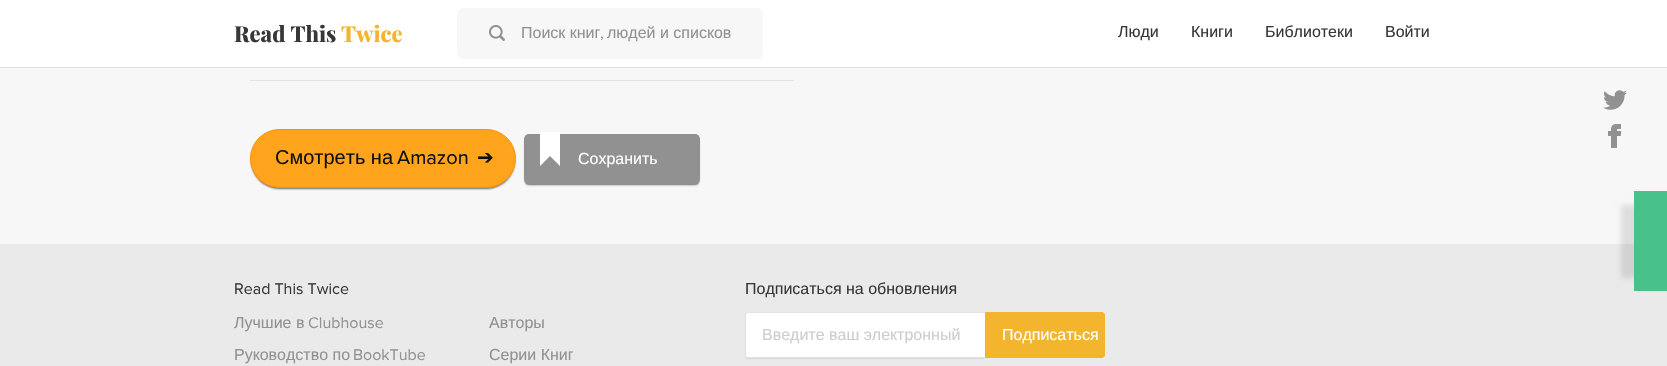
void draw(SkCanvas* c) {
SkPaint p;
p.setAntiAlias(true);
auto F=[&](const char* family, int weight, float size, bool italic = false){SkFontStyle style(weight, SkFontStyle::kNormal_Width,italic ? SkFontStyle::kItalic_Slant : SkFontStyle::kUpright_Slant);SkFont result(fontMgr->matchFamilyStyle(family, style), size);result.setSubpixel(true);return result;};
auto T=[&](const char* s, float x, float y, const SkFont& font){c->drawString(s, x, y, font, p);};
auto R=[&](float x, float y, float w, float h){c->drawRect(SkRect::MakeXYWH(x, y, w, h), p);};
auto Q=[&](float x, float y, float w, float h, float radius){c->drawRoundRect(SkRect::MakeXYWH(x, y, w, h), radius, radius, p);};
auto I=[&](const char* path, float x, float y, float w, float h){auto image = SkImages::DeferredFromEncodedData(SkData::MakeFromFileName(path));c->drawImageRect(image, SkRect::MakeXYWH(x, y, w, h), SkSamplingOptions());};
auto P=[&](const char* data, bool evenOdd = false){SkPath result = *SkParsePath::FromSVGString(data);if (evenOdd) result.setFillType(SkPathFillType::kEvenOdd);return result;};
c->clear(0xfff7f7f7);
p.setColor(0xffffffff);
R(0,0,1667,67);
p.setColor(0xffdddddd);
R(0,67,1667,1);
auto f1 = F("Playfair Display",800,22);
p.setColor(0xff373737);
T("Read This",234,42,f1);
p.setColor(0xfff4b52e);
T("Twice",341,42,f1);
p.setColor(0xfff7f7f7);
Q(457,8,306,51,6);
I("1.png",489,25,16,16);
auto f2 = F("Liberation Sans",400,16);
p.setColor(0xff919191);
T("Поиск книг",521,38,f2);
auto f3 = F("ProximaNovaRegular",400,16);
T(",",600,38,f3);
T("людей и списков",607,38,f2);
p.setColor(0xff373737);
T("Люди",1118,37,f2);
T("Книги",1191,37,f2);
T("Библиотеки",1265,37,f2);
T("Войти",1385,37,f2);
p.setColor(0xffe3e3e3);
R(250,80,544,1);
p.setColor(0xcc464646);
p.setMaskFilter(SkMaskFilter::MakeBlur(kNormal_SkBlurStyle, 1));
c->drawRoundRect(SkRect::MakeXYWH(251,132,264,57),28.5,28.5,p);
p.setMaskFilter(nullptr);
p.setColor(0xffffa41c);
c->drawRoundRect(SkRect::MakeXYWH(250.5,129.5,265,58),29,29,p);
p.setStroke(true);
p.setStrokeWidth(1);
p.setColor(0xffff8f00);
c->drawRoundRect(SkRect::MakeXYWH(250.5,129.5,265,58),29,29,p);
auto f4 = F("Liberation Sans",400,20);
p.setStroke(false);
p.setColor(0xff0f1111);
T("Смотреть на",275,164,f4);
auto f5 = F("ProximaNovaRegular",400,20);
T("Amazon",397,164,f5);
auto f6 = F("DejaVu Sans",400,20);
T("➔",477,164,f6);
p.setColor(0xcc464646);
p.setMaskFilter(SkMaskFilter::MakeBlur(kNormal_SkBlurStyle, 1));
c->drawRoundRect(SkRect::MakeXYWH(525,137,174,48),4,4,p);
p.setMaskFilter(nullptr);
p.setColor(0xff919191);
Q(524,134,176,50,5);
p.setColor(0xffffffff);
R(540,132,20,24);
c->drawPath(P("M560 146v20l-10-10zm-20 20v-20l10 10z"),p);
T("Сохранить",578,164,f2);
p.setColor(0xffeaeaea);
R(0,244,1667,122);
I("2.png",1603,90,24,20);
I("3.png",1608,124,14,24);
p.setColor(0xff373737);
T("Read This Twice",234,294,f3);
p.setColor(0xff919191);
T("Лучшие в",234,328,f2);
T("Clubhouse",308,328,f3);
T("Руководство по",234,360,f2);
T("BookTube",353,360,f3);
T("Авторы",489,328,f2);
T("Серии Книг",489,360,f2);
p.setColor(0xff373737);
T("Подписаться на обновления",745,294,f2);
p.setColor(0x265c6675);
p.setMaskFilter(SkMaskFilter::MakeBlur(kNormal_SkBlurStyle, .5));
c->drawRoundRect(SkRect::MakeXYWH(745,313,240,46),3,3,p);
p.setMaskFilter(nullptr);
p.setColor(0xffffffff);
c->drawPath(P("M748 312h237v46h-237c-1.5 0-3-1.5-3-3v-40c0-1.5 1.5-3 3-3z"),p);
p.setColor(0xffe3e3e3);
c->drawPath(P("M748 312h237v46h-237c-2 0-3-1-3-3v-40c0-2 1-3 3-3zm0 1h237v44h-237c-1 0-2-1-2-2v-40c0-1 1-2 2-2z",true),p);
p.setColor(0xffcdcdcd);
T("Введите ваш электронный",762,340,f2);
p.setColor(0xfff4b52e);
c->drawPath(P("M985.5 312.5h116.5c1.5 0 2.5 1 2.5 2.5v40c0 1.5-1 2.5-2.5 2.5h-116.5z"),p);
p.setStroke(true);
c->drawPath(P("M985.5 312.5h116.5c1.5 0 2.5 1 2.5 2.5v40c0 1.5-1 2.5-2.5 2.5h-116.5z"),p);
p.setStroke(false);
p.setColor(0xffffffff);
T("Подписаться",1002,340,f2);
p.setColor(0x1a000000);
p.setMaskFilter(SkMaskFilter::MakeBlur(kNormal_SkBlurStyle, 2.5));
c->drawRect(SkRect::MakeXYWH(1621,205,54,73),p);
p.setMaskFilter(nullptr);
p.setColor(0xff48c289);
R(1634,191,33,100);
}
